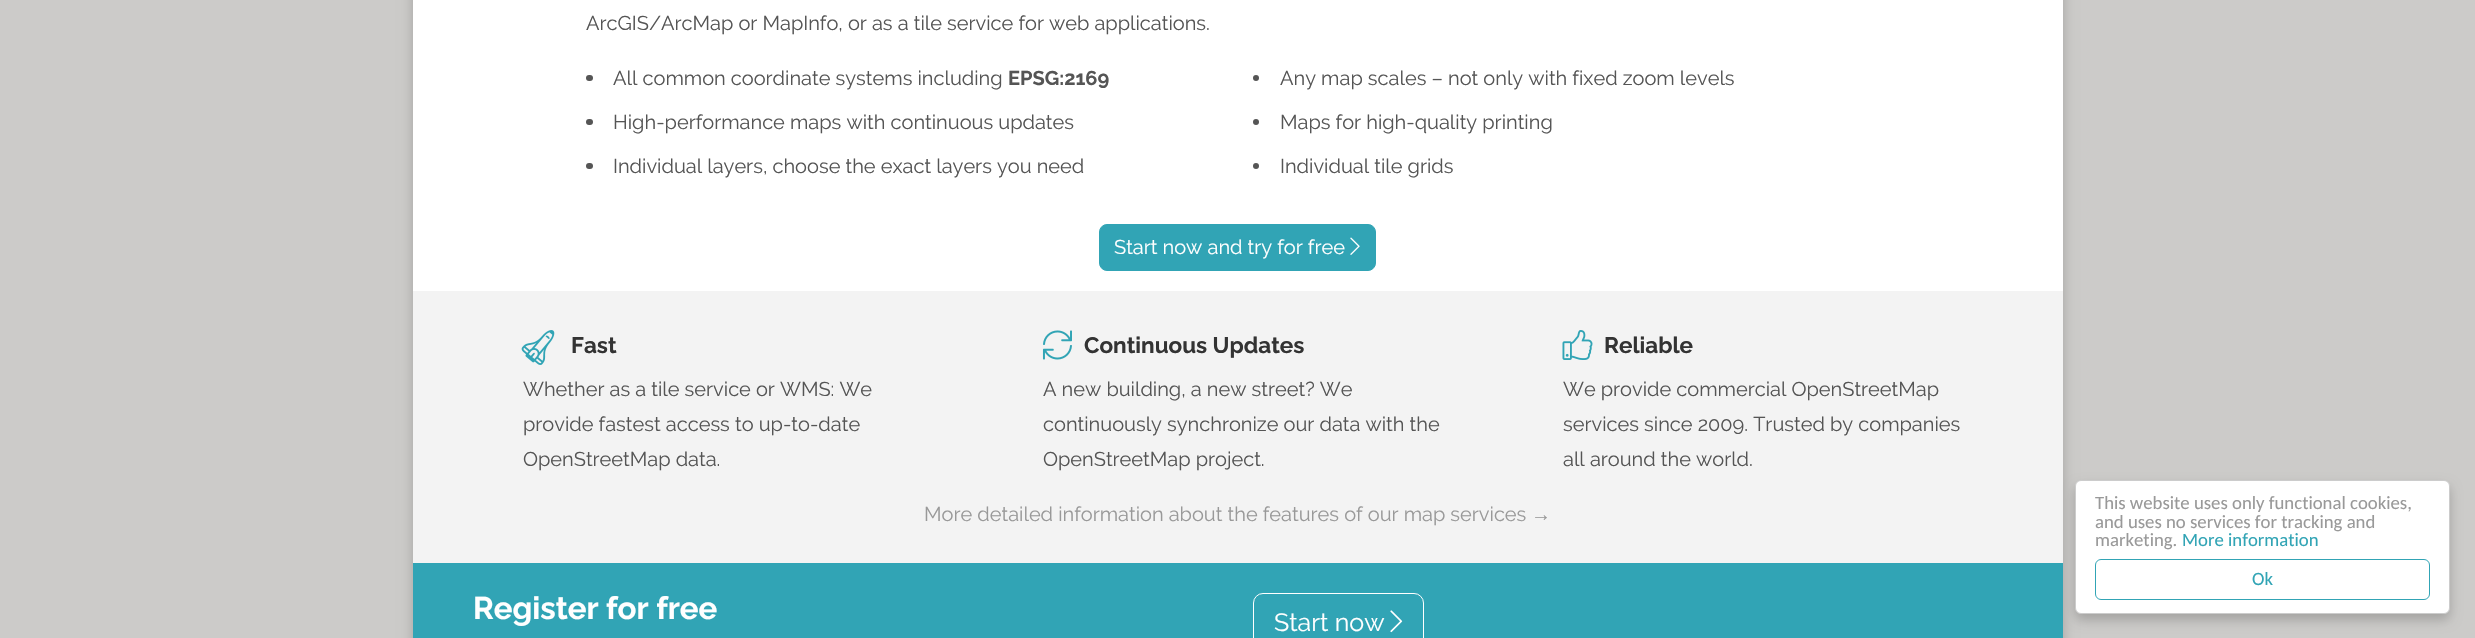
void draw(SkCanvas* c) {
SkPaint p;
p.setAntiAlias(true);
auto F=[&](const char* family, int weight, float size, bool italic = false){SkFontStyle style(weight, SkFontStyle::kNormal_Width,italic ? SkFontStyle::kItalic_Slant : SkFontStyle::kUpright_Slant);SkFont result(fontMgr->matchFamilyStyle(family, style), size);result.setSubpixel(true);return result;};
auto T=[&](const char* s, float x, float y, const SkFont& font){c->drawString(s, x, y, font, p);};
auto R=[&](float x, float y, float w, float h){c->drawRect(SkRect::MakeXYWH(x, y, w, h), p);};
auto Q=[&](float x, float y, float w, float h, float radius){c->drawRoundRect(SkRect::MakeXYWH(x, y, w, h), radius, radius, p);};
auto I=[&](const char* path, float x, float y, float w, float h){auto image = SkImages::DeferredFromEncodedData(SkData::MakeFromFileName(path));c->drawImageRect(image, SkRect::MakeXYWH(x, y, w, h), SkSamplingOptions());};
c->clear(0xffcccbc9);
p.setColor(0x33000000);
p.setMaskFilter(SkMaskFilter::MakeBlur(kNormal_SkBlurStyle, 6));
c->drawRect(SkRect::MakeXYWH(413,-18,1650,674),p);
p.setMaskFilter(nullptr);
p.setColor(0xffffffff);
R(413,0,1650,291);
auto f1 = F("Raleway",400,20);
p.setColor(0xff555555);
T("ArcGIS/ArcMap or MapInfo, or as a tile service for web applications.",586,30,f1);
Q(586,75,7,6,3);
T("All common coordinate systems including",613,85,f1);
auto f2 = F("Raleway",700,20);
T("EPSG:2169",1008,85,f2);
Q(586,119,7,6,3);
T("High-performance maps with continuous updates",613,129,f1);
Q(586,163,7,6,3);
T("Individual layers, choose the exact layers you need",613,173,f1);
c->drawCircle(1256,78,3,p);
T("Any map scales – not only with fixed zoom levels",1280,85,f1);
c->drawCircle(1256,122,3,p);
T("Maps for high-quality printing",1280,129,f1);
c->drawCircle(1256,166,3,p);
T("Individual tile grids",1280,173,f1);
p.setColor(0xff31a4b5);
c->drawRoundRect(SkRect::MakeXYWH(1099.5,224.5,276,46),7.5,7.5,p);
p.setStroke(true);
p.setStrokeWidth(1);
c->drawRoundRect(SkRect::MakeXYWH(1099.5,224.5,276,46),7.5,7.5,p);
p.setStroke(false);
p.setColor(0xffffffff);
T("Start now and try for free",1114,254,f1);
I("1.png",1350,237,10,18);
p.setColor(0xfff3f3f3);
R(413,291,1650,272);
I("2.png",521,330,34,35);
auto f3 = F("Raleway",700,22.5);
p.setColor(0xff333333);
T("Fast",571,353,f3);
p.setColor(0xff555555);
T("Whether as a tile service or WMS: We",523,396,f1);
T("provide fastest access to up-to-date",523,431,f1);
T("OpenStreetMap data.",523,466,f1);
I("3.png",1042,330,30,30);
p.setColor(0xff333333);
T("Continuous Updates",1084,353,f3);
p.setColor(0xff555555);
T("A new building, a new street? We",1043,396,f1);
T("continuously synchronize our data with the",1043,431,f1);
T("OpenStreetMap project.",1043,466,f1);
I("4.png",1562,330,31,30);
p.setColor(0xff333333);
T("Reliable",1604,353,f3);
p.setColor(0xff555555);
T("We provide commercial OpenStreetMap",1563,396,f1);
T("services since 2009. Trusted by companies",1563,431,f1);
T("all around the world.",1563,466,f1);
p.setColor(0xff999999);
T("More detailed information about the features of our map services",924,521,f1);
auto f4 = F("Liberation Sans",400,20);
T("→",1531,521,f4);
p.setColor(0xff31a4b5);
R(413,563,1650,75);
auto f5 = F("Raleway",700,31.25);
p.setColor(0xffffffff);
T("Register for free",473,619,f5);
p.setStroke(true);
c->drawRoundRect(SkRect::MakeXYWH(1253.5,593.5,170,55),9.5,9.5,p);
auto f6 = F("Raleway",400,25);
p.setStroke(false);
T("Start now",1274,631,f6);
I("5.png",1390,610,13,23);
p.setColor(0x33000000);
p.setMaskFilter(SkMaskFilter::MakeBlur(kNormal_SkBlurStyle, 6));
c->drawRoundRect(SkRect::MakeXYWH(2075,486,375,134),6,6,p);
p.setMaskFilter(nullptr);
p.setColor(0xffffffff);
c->drawRoundRect(SkRect::MakeXYWH(2075.5,480.5,374,133),5.5,5.5,p);
p.setStroke(true);
p.setColor(0xffcccccc);
c->drawRoundRect(SkRect::MakeXYWH(2075.5,480.5,374,133),5.5,5.5,p);
auto f7 = F("Carlito",400,18.75);
p.setStroke(false);
p.setColor(0xff999999);
T("This website uses only functional cookies,",2095,509,f7);
T("and uses no services for tracking and",2095,528,f7);
T("marketing.",2095,546,f7);
p.setColor(0xff31a4b5);
T("More information",2182,546,f7);
p.setStroke(true);
c->drawRoundRect(SkRect::MakeXYWH(2095.5,559.5,334,40),5.5,5.5,p);
p.setStroke(false);
T("Ok",2252,585,f7);
}
